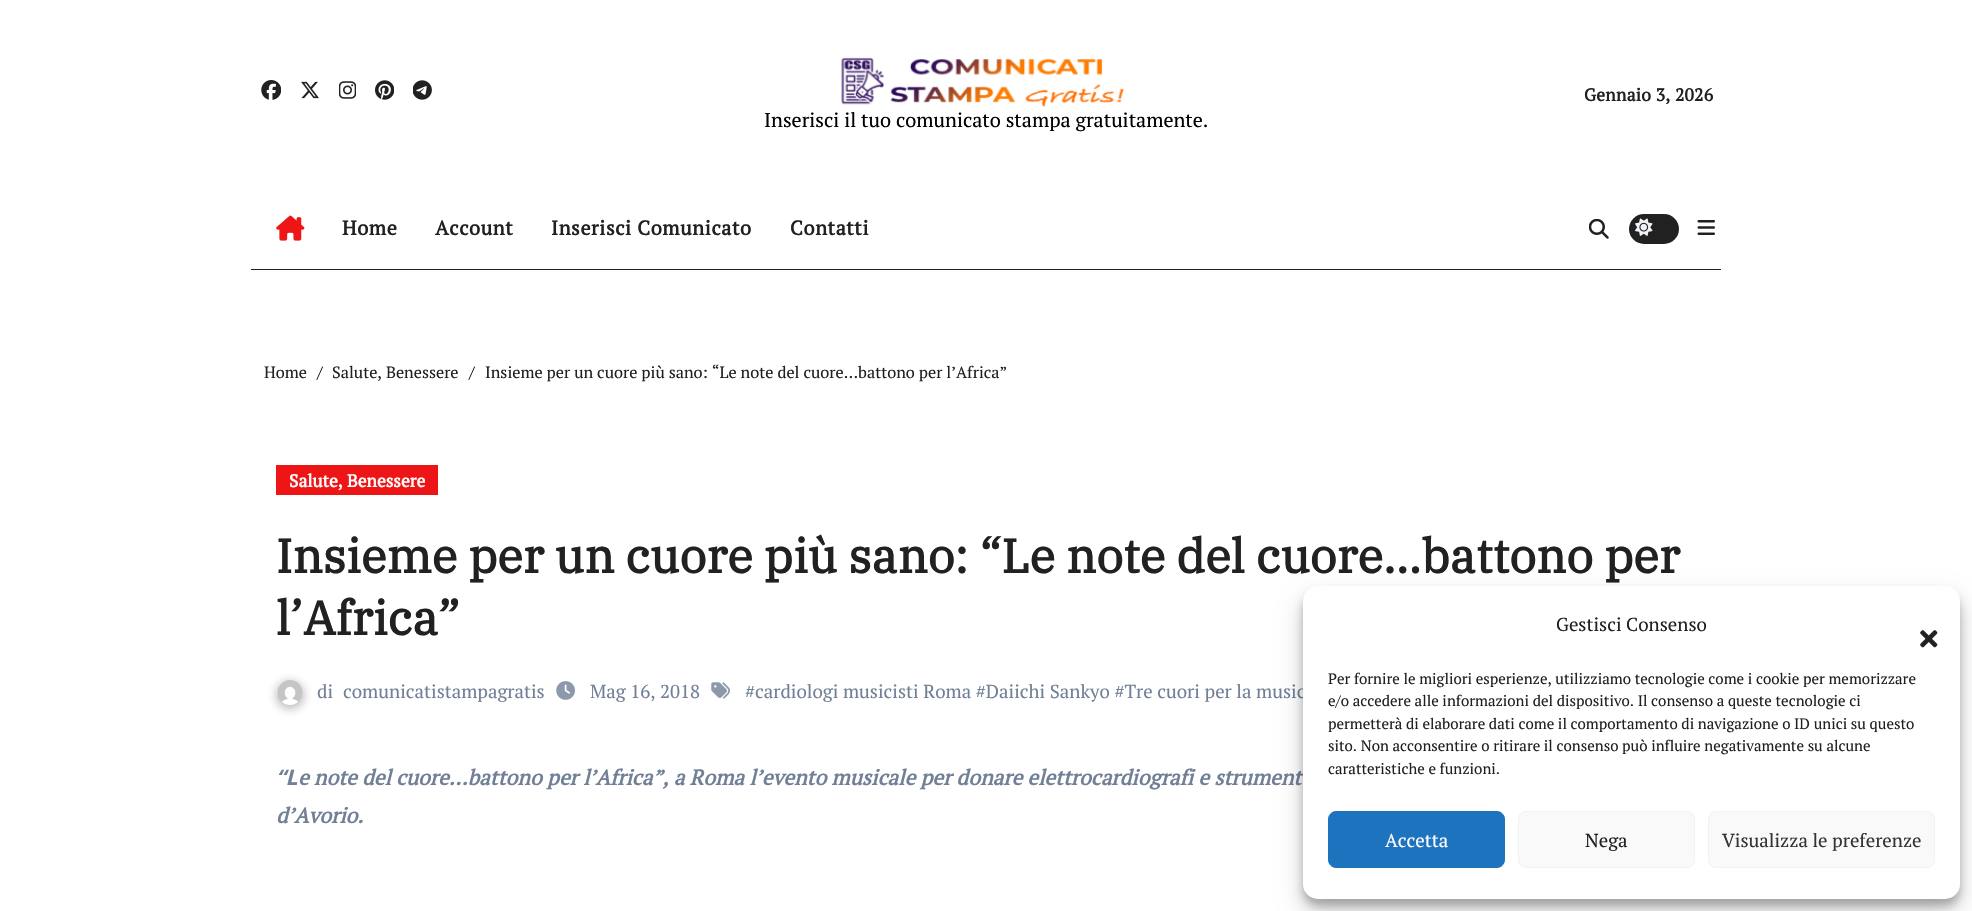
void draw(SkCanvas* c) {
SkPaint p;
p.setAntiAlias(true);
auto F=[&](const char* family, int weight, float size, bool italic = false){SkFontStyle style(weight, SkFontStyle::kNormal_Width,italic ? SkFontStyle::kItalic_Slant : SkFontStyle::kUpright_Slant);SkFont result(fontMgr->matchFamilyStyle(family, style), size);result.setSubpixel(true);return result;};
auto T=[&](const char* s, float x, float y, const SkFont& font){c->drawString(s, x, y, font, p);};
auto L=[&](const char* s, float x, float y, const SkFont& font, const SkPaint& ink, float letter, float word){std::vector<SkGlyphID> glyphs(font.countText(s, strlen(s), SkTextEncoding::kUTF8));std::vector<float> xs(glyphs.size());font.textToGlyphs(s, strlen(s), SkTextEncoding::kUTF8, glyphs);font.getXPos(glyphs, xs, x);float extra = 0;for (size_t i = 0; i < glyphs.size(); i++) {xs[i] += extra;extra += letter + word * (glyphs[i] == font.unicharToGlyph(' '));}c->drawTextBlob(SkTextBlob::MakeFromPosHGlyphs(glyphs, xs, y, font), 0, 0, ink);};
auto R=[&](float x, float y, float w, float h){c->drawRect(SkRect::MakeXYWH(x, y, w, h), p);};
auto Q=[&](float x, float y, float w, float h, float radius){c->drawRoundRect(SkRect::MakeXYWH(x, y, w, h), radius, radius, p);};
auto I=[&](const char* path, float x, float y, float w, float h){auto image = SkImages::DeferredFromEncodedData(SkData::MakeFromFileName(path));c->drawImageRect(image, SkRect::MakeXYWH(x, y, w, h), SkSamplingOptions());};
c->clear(0xffffffff);
I("1.png",261,80,20,20);
I("2.png",301,81,18,18);
I("3.png",339,81,17,18);
I("4.png",375,80,19,20);
I("5.png",413,80,19,20);
auto f1 = F("PT Serif",700,17.5);
p.setColor(0xff212121);
L("Gennaio 3, 2026",1584,101,f1,p,.25,0);
I("6.png",841,57,283,50);
auto f2 = F("PT Serif",400,20);
p.setColor(0xff000000);
T("Inserisci il tuo comunicato stampa gratuitamente.",764,127,f2);
p.setColor(0xff212121);
R(251,269,1470,1);
I("7.png",276,215,29,26);
auto f3 = F("PT Serif",700,20);
L("Home",342,235,f3,p,.6,0);
L("Account",435,235,f3,p,.6,0);
L("Inserisci Comunicato",551,235,f3,p,.6,0);
L("Contatti",790,235,f3,p,.6,0);
I("8.png",1589,219,20,20);
Q(1629,214,50,30,15);
I("9.png",1635,218,18,18);
I("10.png",1697,220,18,15);
auto f4 = F("PT Serif",400,16.25);
T("Home",264,378,f4);
p.setColor(0xff000000);
T("/",317,378,f4);
p.setColor(0xff212121);
T("Salute, Benessere",332,378,f4);
p.setColor(0xff000000);
T("/",469,378,f4);
p.setColor(0xff212121);
T("Insieme per un cuore più sano: “Le note del cuore…battono per l’Africa”",485,378,f4);
p.setColor(0xffed1515);
R(276,465,162,30);
p.setColor(0xffffffff);
T("Salute, Benessere",289,487,f1);
auto f5 = F("IBM Plex Serif",700,47.5);
p.setColor(0xff212121);
T("Insieme per un cuore più sano: “Le note del cuore…battono per",276,573,f5);
T("l’Africa”",276,635,f5);
p.setColor(0x4d212121);
p.setMaskFilter(SkMaskFilter::MakeBlur(kNormal_SkBlurStyle, 5));
c->drawRoundRect(SkRect::MakeXYWH(276,681,28,28),14,14,p);
p.setMaskFilter(nullptr);
I("11.png",277,680,26,25);
auto f6 = F("PT Serif",400,18.75);
p.setColor(0xff718096);
T("di",317,698,f6);
T("comunicatistampagratis",343,698,f6);
I("12.png",556,681,19,19);
T("Mag 16, 2018",590,698,f6);
I("13.png",711,682,19,17);
T("#cardiologi musicisti Roma #Daiichi Sankyo #Tre cuori per la music",745,698,f6);
auto f7 = F("Noto Sans",700,21.25,true);
T("“L",276,785,f7);
auto f8 = F("PT Serif",700,21.25,true);
T("e note del cuore…battono per l’Africa”, a Roma l’evento musicale per donare elettrocardiografi e strument",298,785,f8);
T("d’Avorio.",276,823,f8);
p.setColor(0x3b000000);
p.setMaskFilter(SkMaskFilter::MakeBlur(kNormal_SkBlurStyle, 4));
c->drawRoundRect(SkRect::MakeXYWH(1303,594,657,312),15,15,p);
p.setMaskFilter(nullptr);
p.setColor(0x30000000);
p.setMaskFilter(SkMaskFilter::MakeBlur(kNormal_SkBlurStyle, 12.5));
c->drawRoundRect(SkRect::MakeXYWH(1303,599,657,312),15,15,p);
p.setMaskFilter(nullptr);
p.setColor(0xffffffff);
Q(1303,586,657,313,15);
p.setColor(0xff212121);
T("Gestisci Consenso",1556,631,f6);
I("14.png",1920,630,18,18);
auto f9 = F("PT Serif",400,15);
T("Per fornire le migliori esperienze, utilizziamo tecnologie come i cookie per memorizzare",1328,684,f9);
T("e/o accedere alle informazioni del dispositivo. Il consenso a queste tecnologie ci",1328,706,f9);
T("permetterà di elaborare dati come il comportamento di navigazione o ID unici su questo",1328,729,f9);
T("sito. Non acconsentire o ritirare il consenso può influire negativamente su alcune",1328,751,f9);
T("caratteristiche e funzioni.",1328,774,f9);
p.setColor(0xff1e73be);
c->drawRoundRect(SkRect::MakeXYWH(1328.5,811.5,176,56),7.5,7.5,p);
p.setStroke(true);
p.setStrokeWidth(1);
c->drawRoundRect(SkRect::MakeXYWH(1328.5,811.5,176,56),7.5,7.5,p);
p.setStroke(false);
p.setColor(0xffffffff);
T("Accetta",1385,847,f6);
p.setColor(0xfff9f9f9);
c->drawRoundRect(SkRect::MakeXYWH(1518.5,811.5,176,56),7.5,7.5,p);
p.setStroke(true);
p.setColor(0xfff2f2f2);
c->drawRoundRect(SkRect::MakeXYWH(1518.5,811.5,176,56),7.5,7.5,p);
p.setStroke(false);
p.setColor(0xff212121);
T("Nega",1585,847,f6);
p.setColor(0xfff9f9f9);
c->drawRoundRect(SkRect::MakeXYWH(1708.5,811.5,226,56),7.5,7.5,p);
p.setStroke(true);
p.setColor(0xfff2f2f2);
c->drawRoundRect(SkRect::MakeXYWH(1708.5,811.5,226,56),7.5,7.5,p);
p.setStroke(false);
p.setColor(0xff333333);
T("Visualizza le preferenze",1722,847,f6);
}
